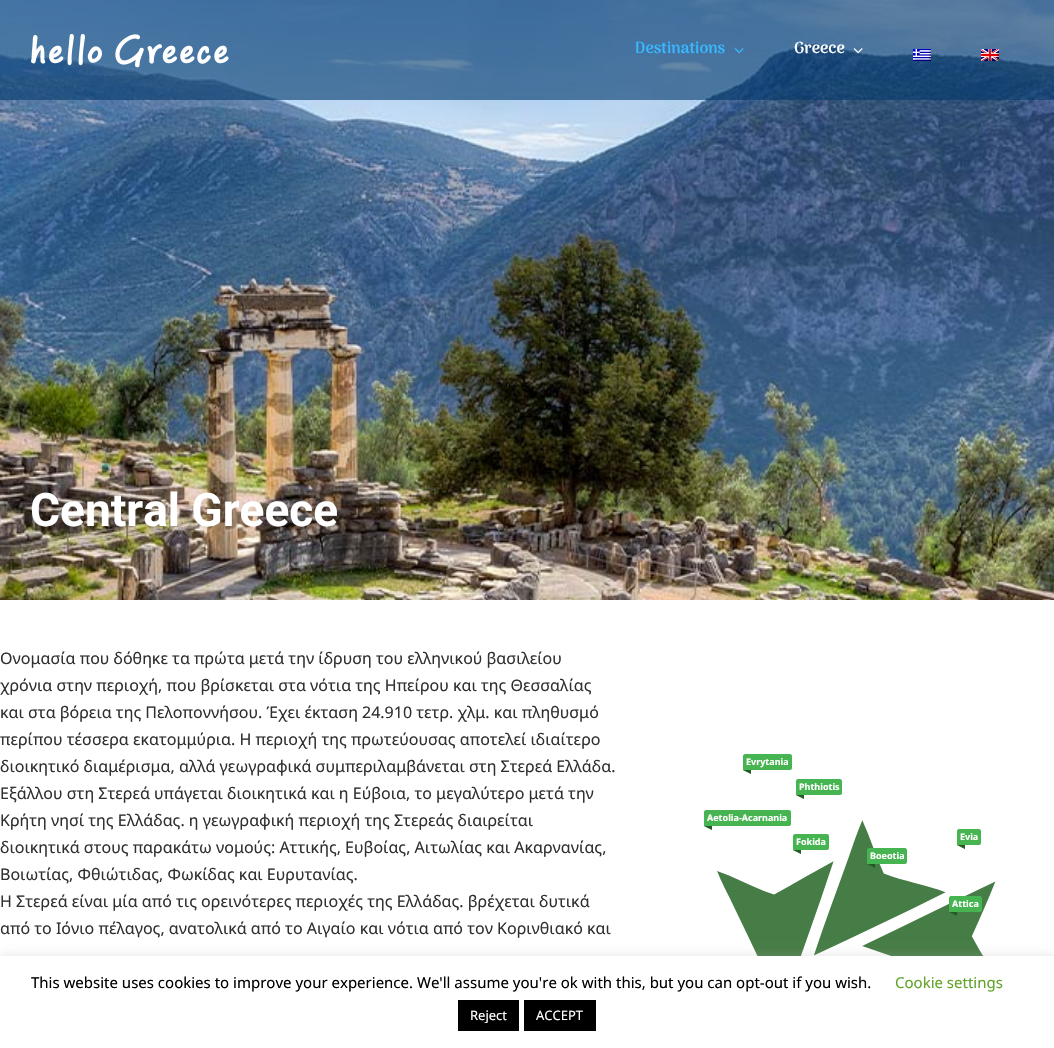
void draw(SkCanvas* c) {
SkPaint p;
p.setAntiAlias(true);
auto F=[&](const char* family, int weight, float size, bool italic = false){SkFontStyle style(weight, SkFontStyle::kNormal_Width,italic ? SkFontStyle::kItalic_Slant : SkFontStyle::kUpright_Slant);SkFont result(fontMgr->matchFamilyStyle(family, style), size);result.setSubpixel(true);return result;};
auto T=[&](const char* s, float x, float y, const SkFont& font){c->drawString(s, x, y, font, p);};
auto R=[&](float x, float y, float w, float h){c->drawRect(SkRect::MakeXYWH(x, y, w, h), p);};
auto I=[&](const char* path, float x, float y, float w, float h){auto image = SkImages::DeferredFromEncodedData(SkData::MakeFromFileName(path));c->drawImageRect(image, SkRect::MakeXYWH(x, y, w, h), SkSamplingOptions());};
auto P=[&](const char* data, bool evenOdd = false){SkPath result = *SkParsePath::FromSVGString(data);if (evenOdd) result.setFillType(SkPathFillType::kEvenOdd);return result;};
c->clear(0xffffffff);
I("6.png",0,0,1054,600);
p.setColor(0x99003769);
R(0,0,1054,100);
I("1.png",31,34,198,34);
auto f1 = F("Arima",600,16);
p.setColor(0xff38b9ff);
T("Destinations",635,53,f1);
I("2.png",734,48,10,6);
p.setColor(0xffffffff);
T("Greece",794,53,f1);
I("3.png",853,48,10,6);
I("4.png",913,49,18,12);
I("5.png",981,49,18,12);
auto f2 = F("Roboto",700,46);
T("Central Greece",30,526,f2);
auto f3 = F("Noto Sans",400,16);
p.setColor(0xff303030);
T("Ονομασία που δόθηκε τα πρώτα μετά την ίδρυση του ελληνικού βασιλείου",0,664,f3);
T("χρόνια στην περιοχή, που βρίσκεται στα νότια της Ηπείρου και της Θεσσαλίας",0,691,f3);
T("και στα βόρεια της Πελοποννήσου. Έχει έκταση 24.910 τετρ. χλμ. και πληθυσμό",0,718,f3);
T("περίπου τέσσερα εκατομμύρια. Η περιοχή της πρωτεύουσας αποτελεί ιδιαίτερο",0,745,f3);
T("διοικητικό διαμέρισμα, αλλά γεωγραφικά συμπεριλαμβάνεται στη Στερεά Ελλάδα.",0,772,f3);
T("Εξάλλου στη Στερεά υπάγεται διοικητικά και η Εύβοια, το μεγαλύτερο μετά την",0,799,f3);
T("Κρήτη νησί της Ελλάδας. η γεωγραφική περιοχή της Στερεάς διαιρείται",0,826,f3);
T("διοικητικά στους παρακάτω νομούς: Αττικής, Ευβοίας, Αιτωλίας και Ακαρνανίας,",0,853,f3);
T("Βοιωτίας, Φθιώτιδας, Φωκίδας και Ευρυτανίας.",0,880,f3);
T("Η Στερεά είναι μία από τις ορεινότερες περιοχές της Ελλάδας. βρέχεται δυτικά",0,907,f3);
T("από το Ιόνιο πέλαγος, ανατολικά από το Αιγαίο και νότια από τον Κορινθιακό και",0,934,f3);
p.setColor(0xff46b450);
c->drawPath(P("M745 754h45c1 0 2 1 2 2v12c0 1-1 2-2 2h-47v-14c0-1 1-2 2-2z"),p);
auto f4 = F("Noto Sans",700,9);
p.setColor(0xffffffff);
T("Evrytania",746,765,f4);
p.setColor(0xff46b450);
c->drawPath(P("M751 770v4l-8-4z"),p);
p.setColor(0x80000000);
c->drawPath(P("M751 770v4l-8-4z"),p);
p.setColor(0xff46b450);
c->drawPath(P("M798 779h42c1 0 2 1 2 2v12c0 1-1 2-2 2h-44v-14c0-1 1-2 2-2z"),p);
p.setColor(0xffffffff);
T("Phthiotis",799,790,f4);
p.setColor(0xff46b450);
c->drawPath(P("M804 795v4l-8-4z"),p);
p.setColor(0x80000000);
c->drawPath(P("M804 795v4l-8-4z"),p);
I("7.png",717,820,279,136);
p.setColor(0xff46b450);
c->drawPath(P("M706 810h83c1 0 2 1 2 2v12c0 1-1 2-2 2h-85v-14c0-1 1-2 2-2z"),p);
p.setColor(0xffffffff);
T("Aetolia-Acarnania",707,821,f4);
p.setColor(0xff46b450);
c->drawPath(P("M712 826v4l-8-4z"),p);
p.setColor(0x80000000);
c->drawPath(P("M712 826v4l-8-4z"),p);
p.setColor(0xff46b450);
c->drawPath(P("M959 829h20c1 0 2 1 2 2v12c0 1-1 2-2 2h-22v-14c0-1 1-2 2-2z"),p);
p.setColor(0xffffffff);
T("Evia",960,840,f4);
p.setColor(0xff46b450);
c->drawPath(P("M965 845v4l-8-4z"),p);
p.setColor(0x80000000);
c->drawPath(P("M965 845v4l-8-4z"),p);
p.setColor(0xff46b450);
c->drawPath(P("M795 834h32c1 0 2 1 2 2v12c0 1-1 2-2 2h-34v-14c0-1 1-2 2-2z"),p);
p.setColor(0xffffffff);
T("Fokida",796,845,f4);
p.setColor(0xff46b450);
c->drawPath(P("M801 850v4l-8-4z"),p);
p.setColor(0x80000000);
c->drawPath(P("M801 850v4l-8-4z"),p);
p.setColor(0xff46b450);
c->drawPath(P("M869 848h36c1 0 2 1 2 2v12c0 1-1 2-2 2h-38v-14c0-1 1-2 2-2z"),p);
p.setColor(0xffffffff);
T("Boeotia",870,859,f4);
p.setColor(0xff46b450);
c->drawPath(P("M875 864v4l-8-4z"),p);
p.setColor(0x80000000);
c->drawPath(P("M875 864v4l-8-4z"),p);
p.setColor(0xff46b450);
c->drawPath(P("M951 896h29c1 0 2 1 2 2v12c0 1-1 2-2 2h-31v-14c0-1 1-2 2-2z"),p);
p.setColor(0xffffffff);
T("Attica",952,907,f4);
p.setColor(0xff46b450);
c->drawPath(P("M957 912v4l-8-4z"),p);
p.setColor(0x80000000);
c->drawPath(P("M957 912v4l-8-4z"),p);
p.setColor(0x4dacabab);
p.setMaskFilter(SkMaskFilter::MakeBlur(kNormal_SkBlurStyle, 5));
c->drawRect(SkRect::MakeXYWH(0,955,1054,92),p);
p.setMaskFilter(nullptr);
p.setColor(0xffffffff);
R(0,956,1054,92);
auto f5 = F("Noto Sans",400,15);
p.setColor(0xff000000);
T("This website uses cookies to improve your experience. We'll assume you're ok with this, but you can opt-out if you wish.",31,988,f5);
p.setColor(0xff62a329);
T("Cookie settings",895,988,f5);
p.setColor(0xff000000);
R(458,1000,61,31);
auto f6 = F("Noto Sans",400,13);
p.setColor(0xffffffff);
T("Reject",470,1020,f6);
p.setColor(0xff000000);
R(524,1000,72,31);
p.setColor(0xffffffff);
T("ACCEPT",536,1020,f6);
}
